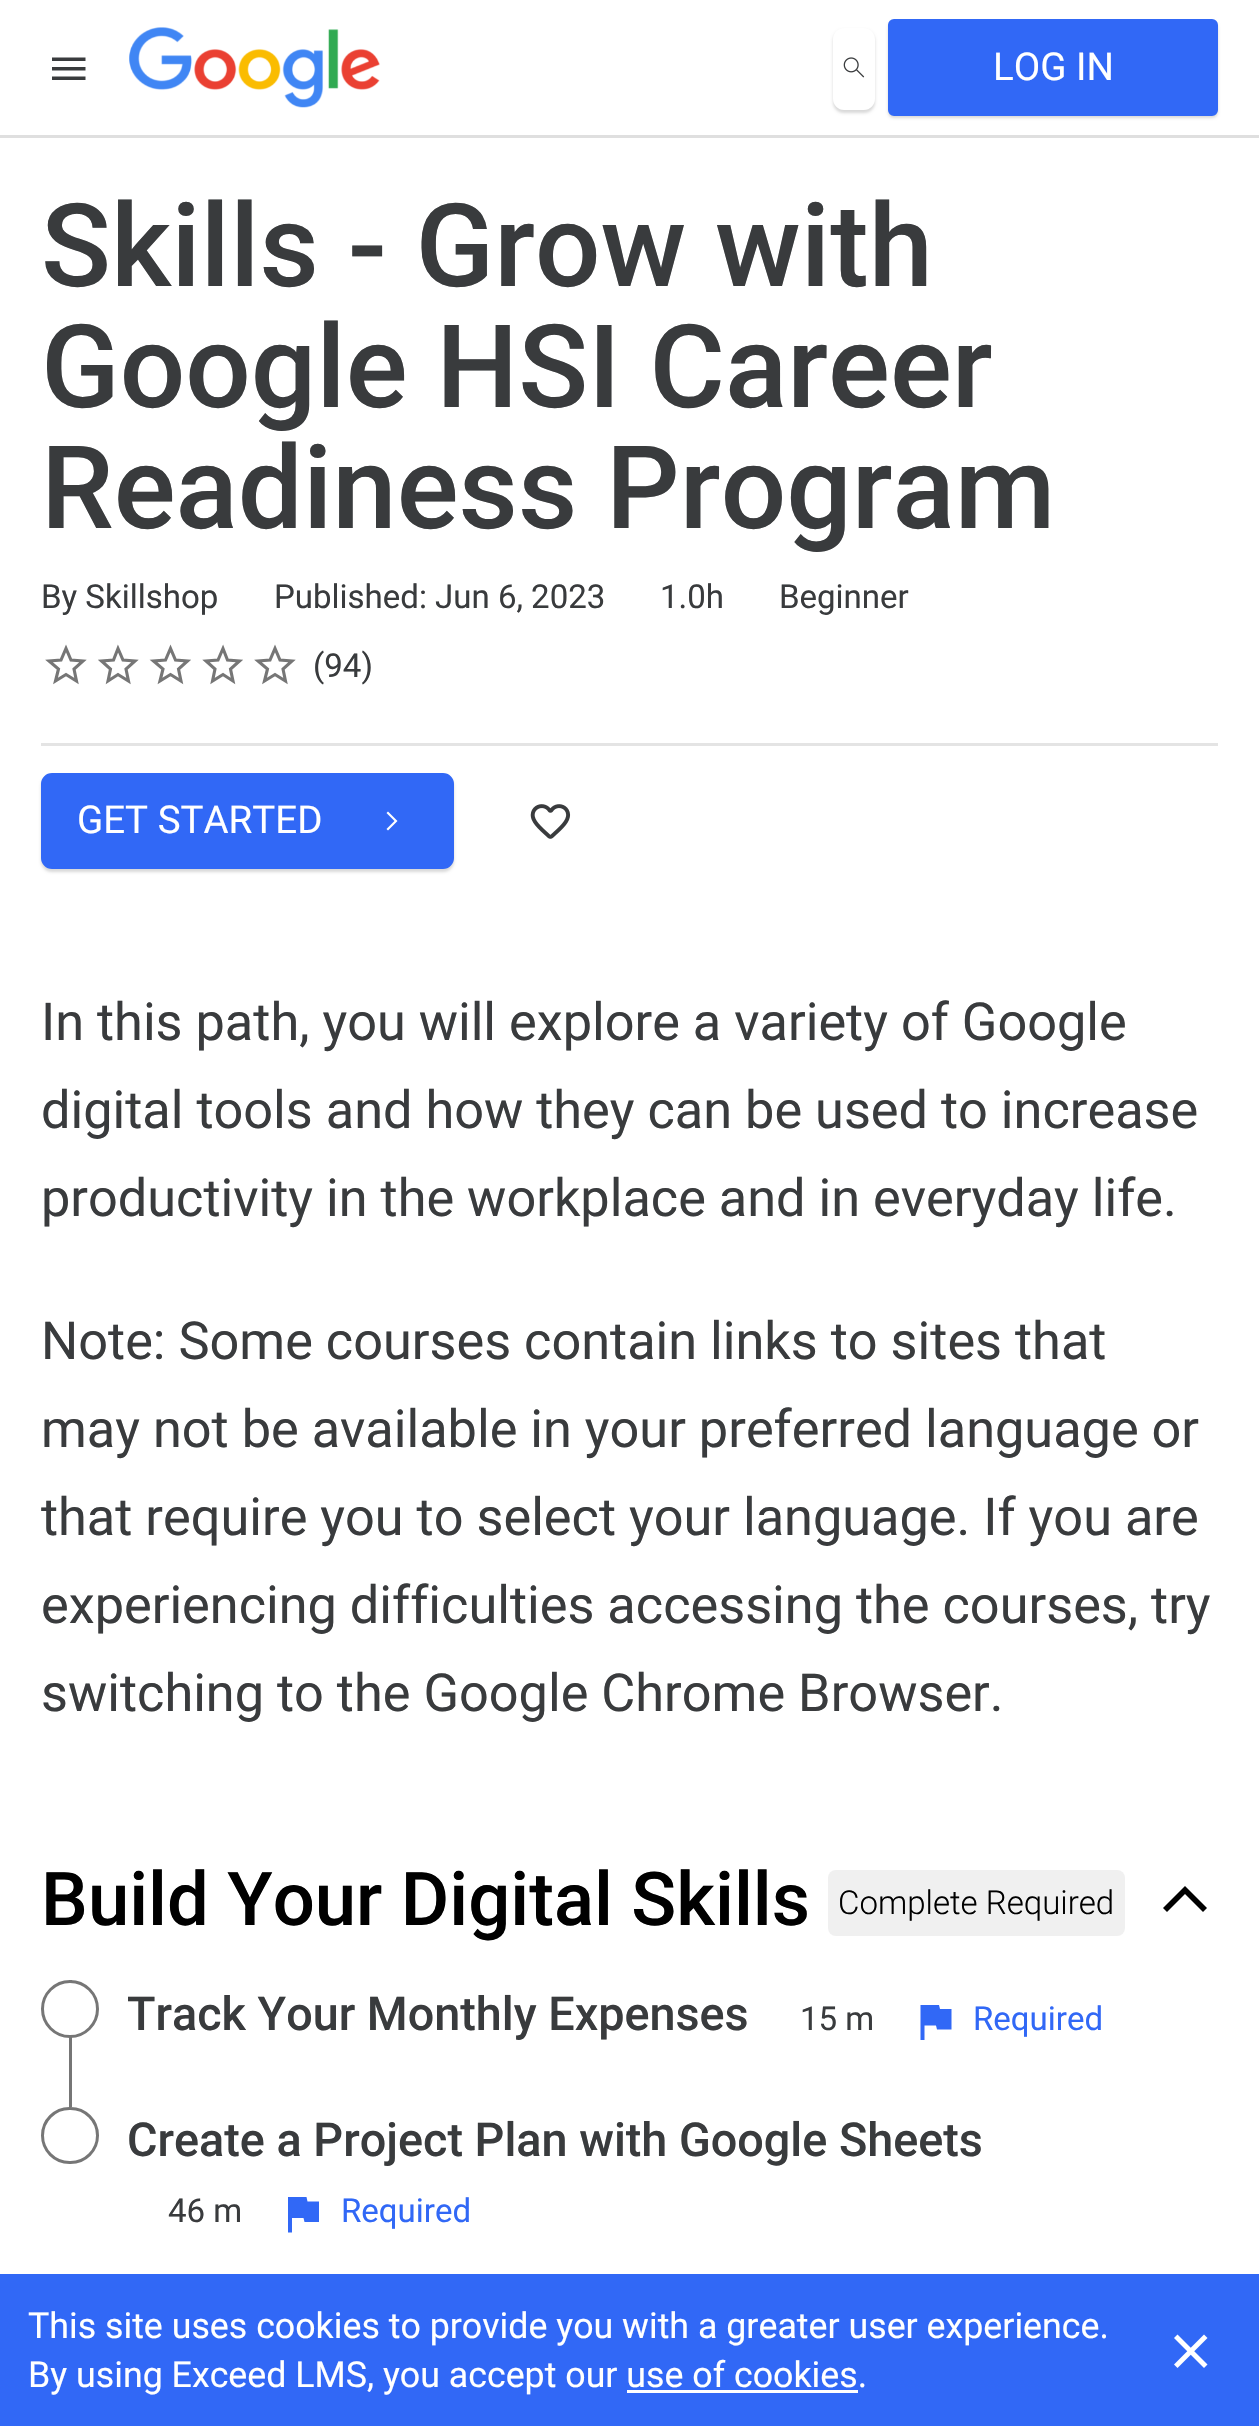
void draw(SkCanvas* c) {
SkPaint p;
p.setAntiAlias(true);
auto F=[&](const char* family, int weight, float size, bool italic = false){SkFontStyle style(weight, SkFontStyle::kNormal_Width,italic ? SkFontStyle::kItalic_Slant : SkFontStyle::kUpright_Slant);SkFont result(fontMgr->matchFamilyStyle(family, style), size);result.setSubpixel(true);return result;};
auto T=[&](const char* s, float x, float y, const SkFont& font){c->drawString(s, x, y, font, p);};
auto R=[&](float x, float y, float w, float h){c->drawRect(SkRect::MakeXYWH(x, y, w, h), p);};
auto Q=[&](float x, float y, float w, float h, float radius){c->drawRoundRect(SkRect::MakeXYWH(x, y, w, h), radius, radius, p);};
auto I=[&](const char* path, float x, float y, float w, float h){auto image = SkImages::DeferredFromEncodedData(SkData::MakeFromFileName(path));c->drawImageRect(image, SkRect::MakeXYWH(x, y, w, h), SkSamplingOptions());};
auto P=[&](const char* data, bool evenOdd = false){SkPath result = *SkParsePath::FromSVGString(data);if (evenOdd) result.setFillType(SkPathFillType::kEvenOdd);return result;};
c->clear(0xffffffff);
p.setColor(0xffdfdfdf);
R(0,135,1259,3);
p.setColor(0xff393b3d);
c->drawPath(P("M52 80h33.5v-3.5h-33.5zm0-9.5h33.5v-3.5h-33.5zm0-13v3.5h33.5v-3.5z"),p);
I("1.png",129,27,251,81);
c->save();
c->clipPath(P("M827 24h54v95h-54zm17 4h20c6 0 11 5 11 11v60c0 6-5 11-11 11h-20c-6 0-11-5-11-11v-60c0-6 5-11 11-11z",true),true);
p.setColor(0x26000000);
p.setMaskFilter(SkMaskFilter::MakeBlur(kNormal_SkBlurStyle, 1.5));
c->drawRoundRect(SkRect::MakeXYWH(833,30,42,83),11,11,p);
p.setMaskFilter(nullptr);
c->restore();
I("2.png",843,57,22,21);
p.setMaskFilter(SkMaskFilter::MakeBlur(kNormal_SkBlurStyle, 1.5));
c->drawRoundRect(SkRect::MakeXYWH(888,22,330,96),6,6,p);
p.setMaskFilter(nullptr);
p.setColor(0xff3168f6);
c->drawRoundRect(SkRect::MakeXYWH(889.5,20.5,327,94),4.5,4.5,p);
p.setStroke(true);
p.setStrokeWidth(3);
c->drawRoundRect(SkRect::MakeXYWH(889.5,20.5,327,94),4.5,4.5,p);
auto f1 = F("Roboto",400,38.5);
p.setStroke(false);
p.setColor(0xffffffff);
T("LOG IN",993,80,f1);
auto f2 = F("Roboto",500,115.5);
p.setColor(0xff393b3d);
T("Skills - Grow with",41,286,f2);
T("Google HSI Career",41,407,f2);
T("Readiness Program",41,528,f2);
auto f3 = F("Roboto",400,33);
T("By Skillshop",41,608,f3);
T("Published: Jun 6, 2023",274,608,f3);
T("1.0h",660,608,f3);
T("Beginner",779,608,f3);
p.setStroke(true);
p.setStrokeWidth(3.1);
p.setColor(0xff767676);
c->drawPath(P("M55.5 681l3-12l-9.5-8l12-1l5-11.5l5 11.5l12 1l-9 8l2.5 12l-10.5-6.5z"),p);
c->drawPath(P("M108 681l2.5-12l-9-8l12-1l4.5-11.5l5 11.5l12 1l-9 8l2.5 12l-10.5-6.5z"),p);
c->drawPath(P("M160 681l3-12l-9.5-8l12-1l5-11.5l5 11.5l12 1l-9 8l2.5 12l-10.5-6.5z"),p);
c->drawPath(P("M212.5 681l2.5-12l-9-8l12-1l5-11.5l4.5 11.5l12 1l-9 8l2.5 12l-10-6.5z"),p);
c->drawPath(P("M264.5 681l3-12l-9.5-8l12-1l5-11.5l5 11.5l12 1l-9 8l2.5 12l-10.5-6.5z"),p);
p.setStroke(false);
p.setColor(0xff393b3d);
T("(94)",313,677,f3);
p.setColor(0xffe4e4e4);
R(41,743,1177,3);
p.setColor(0x26000000);
p.setMaskFilter(SkMaskFilter::MakeBlur(kNormal_SkBlurStyle, 1.5));
c->drawRoundRect(SkRect::MakeXYWH(41,776,413,96),11,11,p);
p.setMaskFilter(nullptr);
p.setColor(0xff3168f6);
c->drawRoundRect(SkRect::MakeXYWH(42.5,774.5,410,93),9.5,9.5,p);
p.setStroke(true);
p.setStrokeWidth(3);
c->drawRoundRect(SkRect::MakeXYWH(42.5,774.5,410,93),9.5,9.5,p);
p.setStroke(false);
p.setColor(0xffffffff);
T("GET STARTED",77,833,f1);
c->drawPath(P("M388 811.5l-1.5 1.5l8 8l-8 8l1.5 1.5l9.5-9.5z"),p);
I("3.png",530,804,41,35);
auto f4 = F("Roboto",400,52.25);
p.setColor(0xff393b3d);
T("In this path, you will explore a variety of Google",41,1040,f4);
T("digital tools and how they can be used to increase",41,1128,f4);
T("productivity in the workplace and in everyday life.",41,1216,f4);
T("Note: Some courses contain links to sites that",41,1359,f4);
T("may not be available in your preferred language or",41,1447,f4);
T("that require you to select your language. If you are",41,1535,f4);
T("experiencing difficulties accessing the courses, try",41,1623,f4);
T("switching to the Google Chrome Browser.",41,1711,f4);
auto f5 = F("Roboto",500,74.25);
p.setColor(0xff000000);
T("Build Your Digital Skills",41,1925,f5);
p.setColor(0xfff0f0f0);
Q(828,1870,297,66,8);
auto f6 = F("Roboto",300,33);
p.setColor(0xff000000);
T("Complete Required",838,1914,f6);
c->drawPath(P("M1203 1912l-18-18l-18 18l-4-4l22-22l22 22z"),p);
p.setColor(0xff767676);
R(69,1980,3,127);
p.setColor(0xffffffff);
c->drawCircle(70,2009,27.5,p);
p.setStroke(true);
p.setColor(0xff767676);
c->drawCircle(70,2009,27.5,p);
auto f7 = F("Roboto",500,46.75);
p.setStroke(false);
p.setColor(0xff393b3d);
T("Track Your Monthly Expenses",127,2030,f7);
T("15 m",800,2030,f3);
p.setColor(0xff3168f6);
c->drawPath(P("M940 2009l-1-4h-18.5v35h4v-14.5h11.5l1 4h14.5v-20.5z"),p);
T("Required",973,2030,f3);
p.setStroke(true);
p.setColor(0xff767676);
c->drawRoundRect(SkRect::MakeXYWH(42.5,2108.5,55,54),27,27,p);
p.setStroke(false);
p.setColor(0xff393b3d);
T("Create a Project Plan with Google Sheets",127,2156,f7);
T("46 m",168,2222,f3);
p.setColor(0xff3168f6);
c->drawPath(P("M307.5 2201.5l-1-4.5h-18.5v35.5h4v-14.5h11.5l1 4h14.5v-20.5z"),p);
T("Required",341,2222,f3);
R(0,2274,1259,152);
auto f8 = F("Roboto",400,35.75);
p.setColor(0xffffffff);
T("This site uses cookies to provide you with a greater user experience.",28,2338,f8);
T("By using Exceed LMS, you accept our use of cookies.",28,2387,f8);
R(627,2390,231,3);
c->drawPath(P("M1177.5 2368l30-30l-3.5-3.5l-30 30z"),p);
c->drawPath(P("M1174 2338l30 30l3.5-3.5l-30-30z"),p);
}
